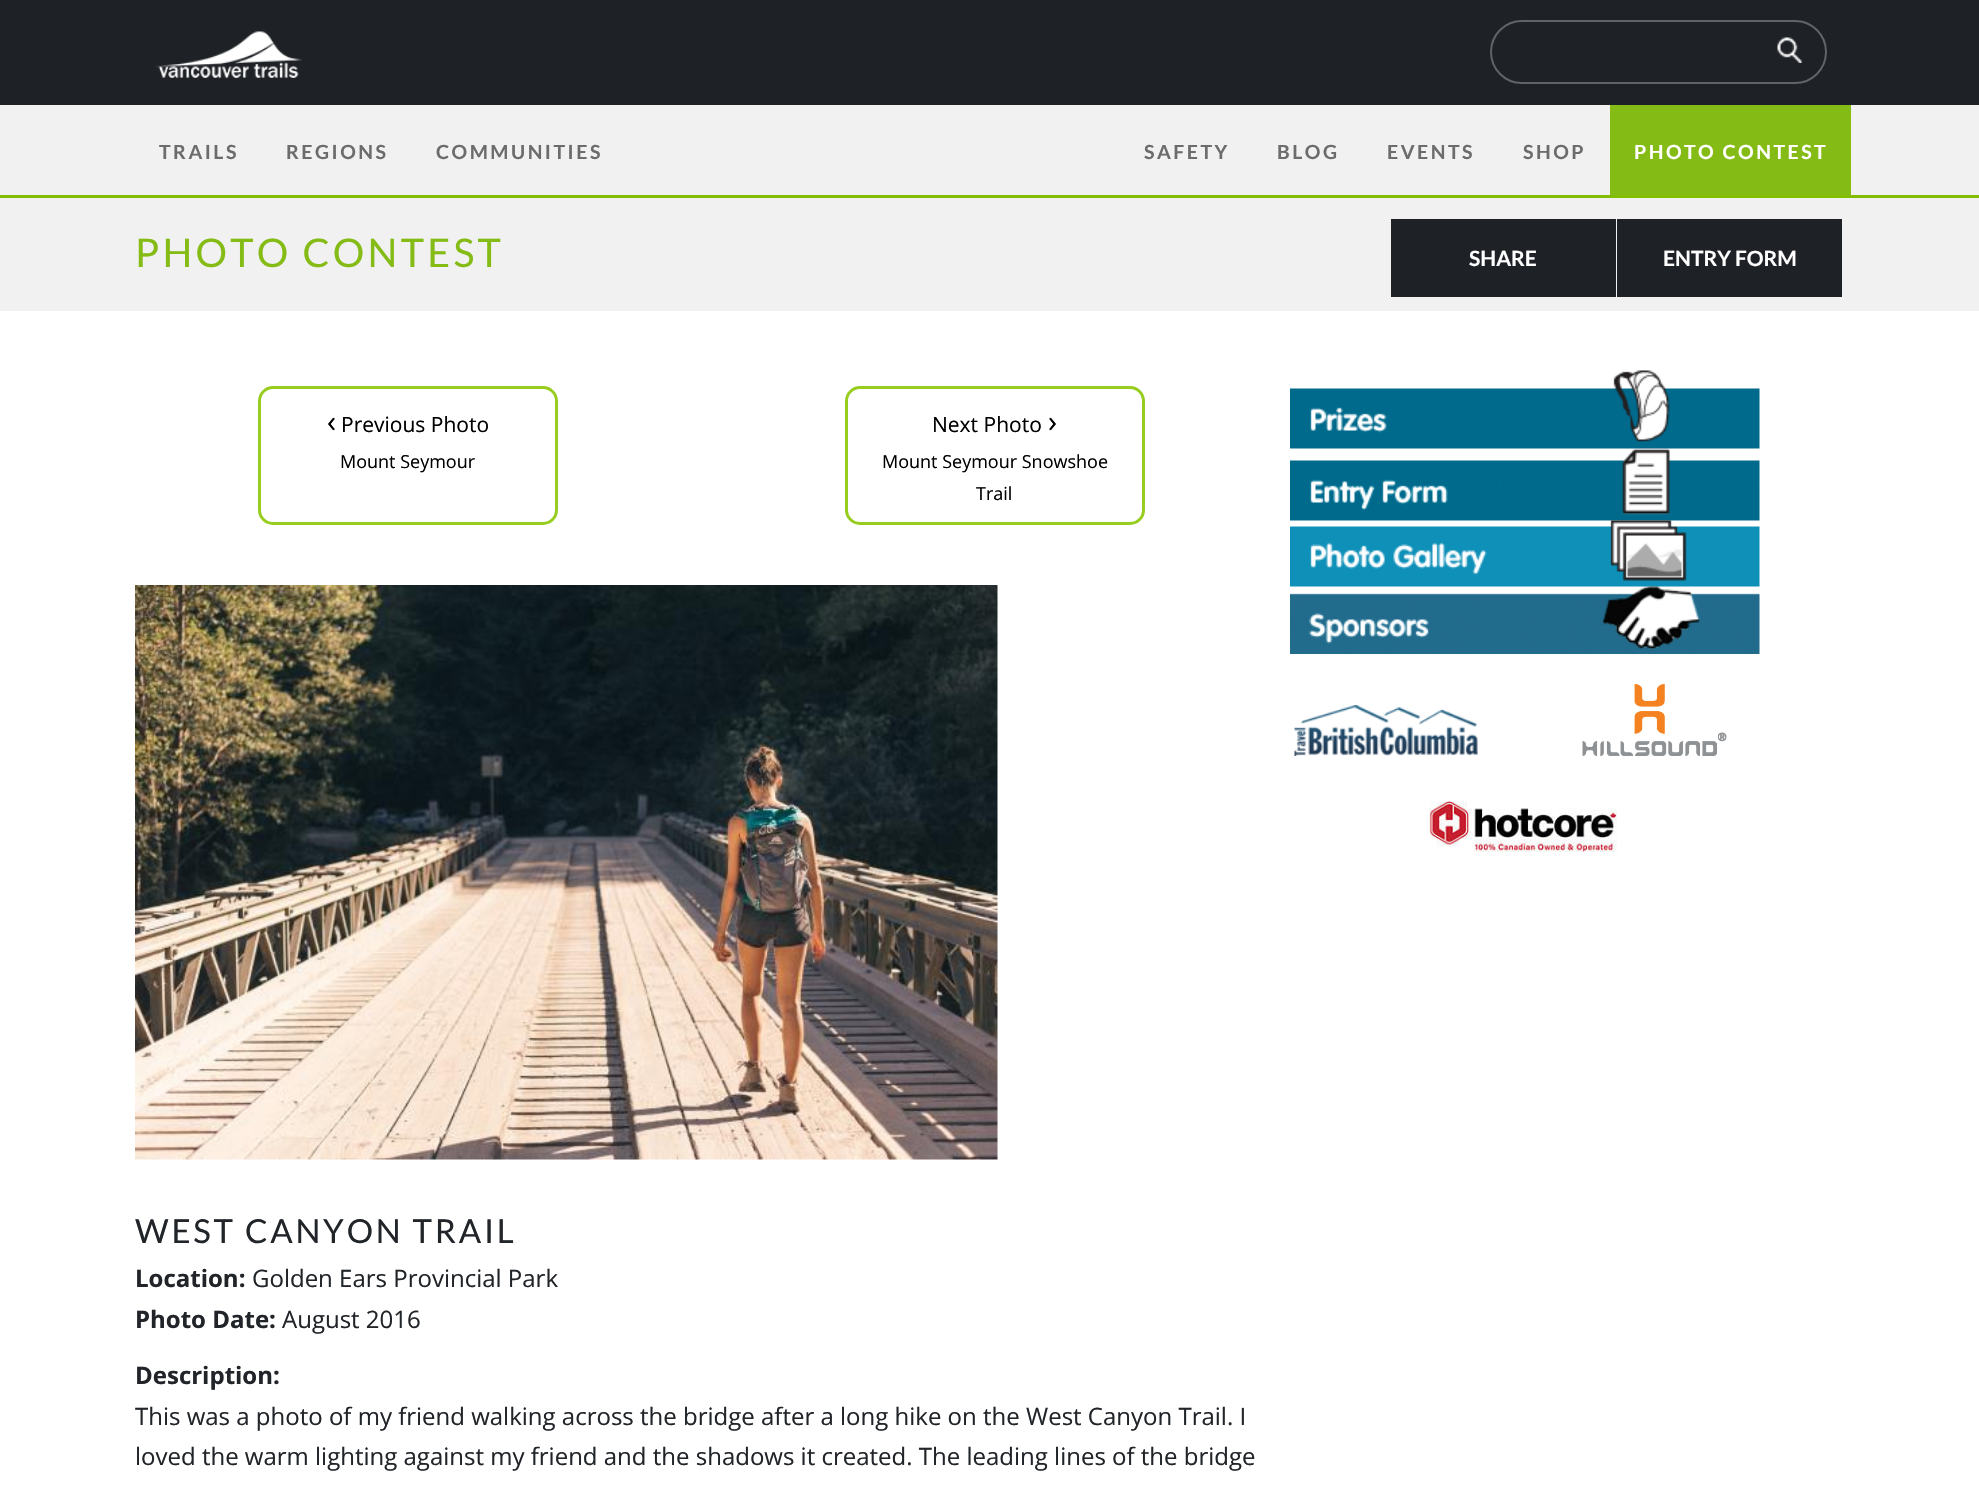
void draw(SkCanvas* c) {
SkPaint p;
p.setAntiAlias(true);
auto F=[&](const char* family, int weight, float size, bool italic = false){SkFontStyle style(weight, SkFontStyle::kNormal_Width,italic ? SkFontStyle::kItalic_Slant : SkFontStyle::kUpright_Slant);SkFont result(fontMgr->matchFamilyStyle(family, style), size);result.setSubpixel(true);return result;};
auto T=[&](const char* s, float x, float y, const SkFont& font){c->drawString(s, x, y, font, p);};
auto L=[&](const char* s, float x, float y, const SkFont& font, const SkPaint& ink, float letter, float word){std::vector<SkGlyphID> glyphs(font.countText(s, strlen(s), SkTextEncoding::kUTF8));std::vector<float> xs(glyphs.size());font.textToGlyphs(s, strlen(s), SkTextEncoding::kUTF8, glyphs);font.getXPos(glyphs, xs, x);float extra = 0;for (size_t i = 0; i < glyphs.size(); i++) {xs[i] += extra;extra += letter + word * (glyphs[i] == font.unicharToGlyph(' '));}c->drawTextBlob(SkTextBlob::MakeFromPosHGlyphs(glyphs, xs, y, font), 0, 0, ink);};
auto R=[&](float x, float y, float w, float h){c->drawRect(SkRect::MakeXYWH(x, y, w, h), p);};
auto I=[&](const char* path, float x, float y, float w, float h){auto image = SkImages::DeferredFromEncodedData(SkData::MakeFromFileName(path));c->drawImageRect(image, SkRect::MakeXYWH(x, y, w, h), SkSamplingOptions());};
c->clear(0xffffffff);
p.setColor(0xff1e2126);
R(0,0,1979,105);
I("1.png",155,31,147,47);
p.setStroke(true);
p.setStrokeWidth(2);
p.setColor(0xff616366);
c->drawRoundRect(SkRect::MakeXYWH(1491,21,335,62),31,31,p);
I("2.png",1777,37,25,26);
p.setStroke(false);
p.setColor(0xfff1f1f1);
R(0,105,1979,90);
auto f1 = F("Lato",700,19.5);
p.setColor(0xff6c6c6c);
L("TRAILS",159,159,f1,p,2.5,0);
L("REGIONS",286,159,f1,p,2.5,0);
L("COMMUNITIES",436,159,f1,p,2.5,0);
L("SAFETY",1144,159,f1,p,2.5,0);
L("BLOG",1277,159,f1,p,2.5,0);
L("EVENTS",1387,159,f1,p,2.5,0);
L("SHOP",1523,159,f1,p,2.5,0);
p.setColor(0xff84bb15);
R(1610,105,241,90);
p.setColor(0xffffffff);
L("PHOTO CONTEST",1634,159,f1,p,2.5,0);
p.setColor(0xff83bd00);
R(0,195,1979,3);
p.setColor(0xfff1f1f1);
R(0,198,1979,113);
auto f2 = F("Lato",400,39.5);
p.setColor(0xff84bb15);
L("PHOTO CONTEST",135,267,f2,p,3.25,0);
p.setColor(0xff1e2126);
R(1391,219,225,78);
auto f3 = F("Lato",700,21);
p.setColor(0xffffffff);
T("SHARE",1469,266,f3);
p.setColor(0xff1e2126);
R(1617,219,225,78);
p.setColor(0xffffffff);
T("ENTRY FORM",1663,266,f3);
p.setStroke(true);
p.setStrokeWidth(3);
p.setColor(0xff97cd1e);
c->drawRoundRect(SkRect::MakeXYWH(259.5,387.5,297,136),13.5,13.5,p);
auto f4 = F("Open Sans",400,30);
p.setStroke(false);
p.setColor(0xff000000);
T("‹",327,432,f4);
auto f5 = F("Open Sans",400,21);
T("Previous Photo",341,432,f5);
auto f6 = F("Open Sans",400,18);
T("Mount Seymour",340,468,f6);
p.setStroke(true);
p.setColor(0xff97cd1e);
c->drawRoundRect(SkRect::MakeXYWH(846.5,387.5,297,136),13.5,13.5,p);
p.setStroke(false);
p.setColor(0xff000000);
T("Next Photo",932,432,f5);
T("›",1048,432,f4);
T("Mount Seymour Snowshoe",882,468,f6);
T("Trail",976,500,f6);
I("3.png",135,585,863,575);
auto f7 = F("Lato",400,33);
p.setColor(0xff212529);
L("WEST CANYON TRAIL",135,1243,f7,p,2.75,0);
auto f8 = F("Open Sans",700,24);
T("Location:",135,1287,f8);
auto f9 = F("Open Sans",400,24);
T("Golden Ears Provincial Park",252,1287,f9);
T("Photo Date:",135,1328,f8);
T("August 2016",282,1328,f9);
T("Description:",135,1384,f8);
T("This was a photo of my friend walking across the bridge after a long hike on the West Canyon Trail. I",135,1425,f9);
T("loved the warm lighting against my friend and the shadows it created. The leading lines of the bridge",135,1465,f9);
I("4.png",1290,370,470,79);
I("5.png",1290,448,470,73);
I("6.png",1290,520,470,67);
I("7.png",1290,586,470,68);
I("8.png",1294,705,184,51);
I("9.png",1582,684,145,72);
I("10.png",1429,801,188,51);
}
